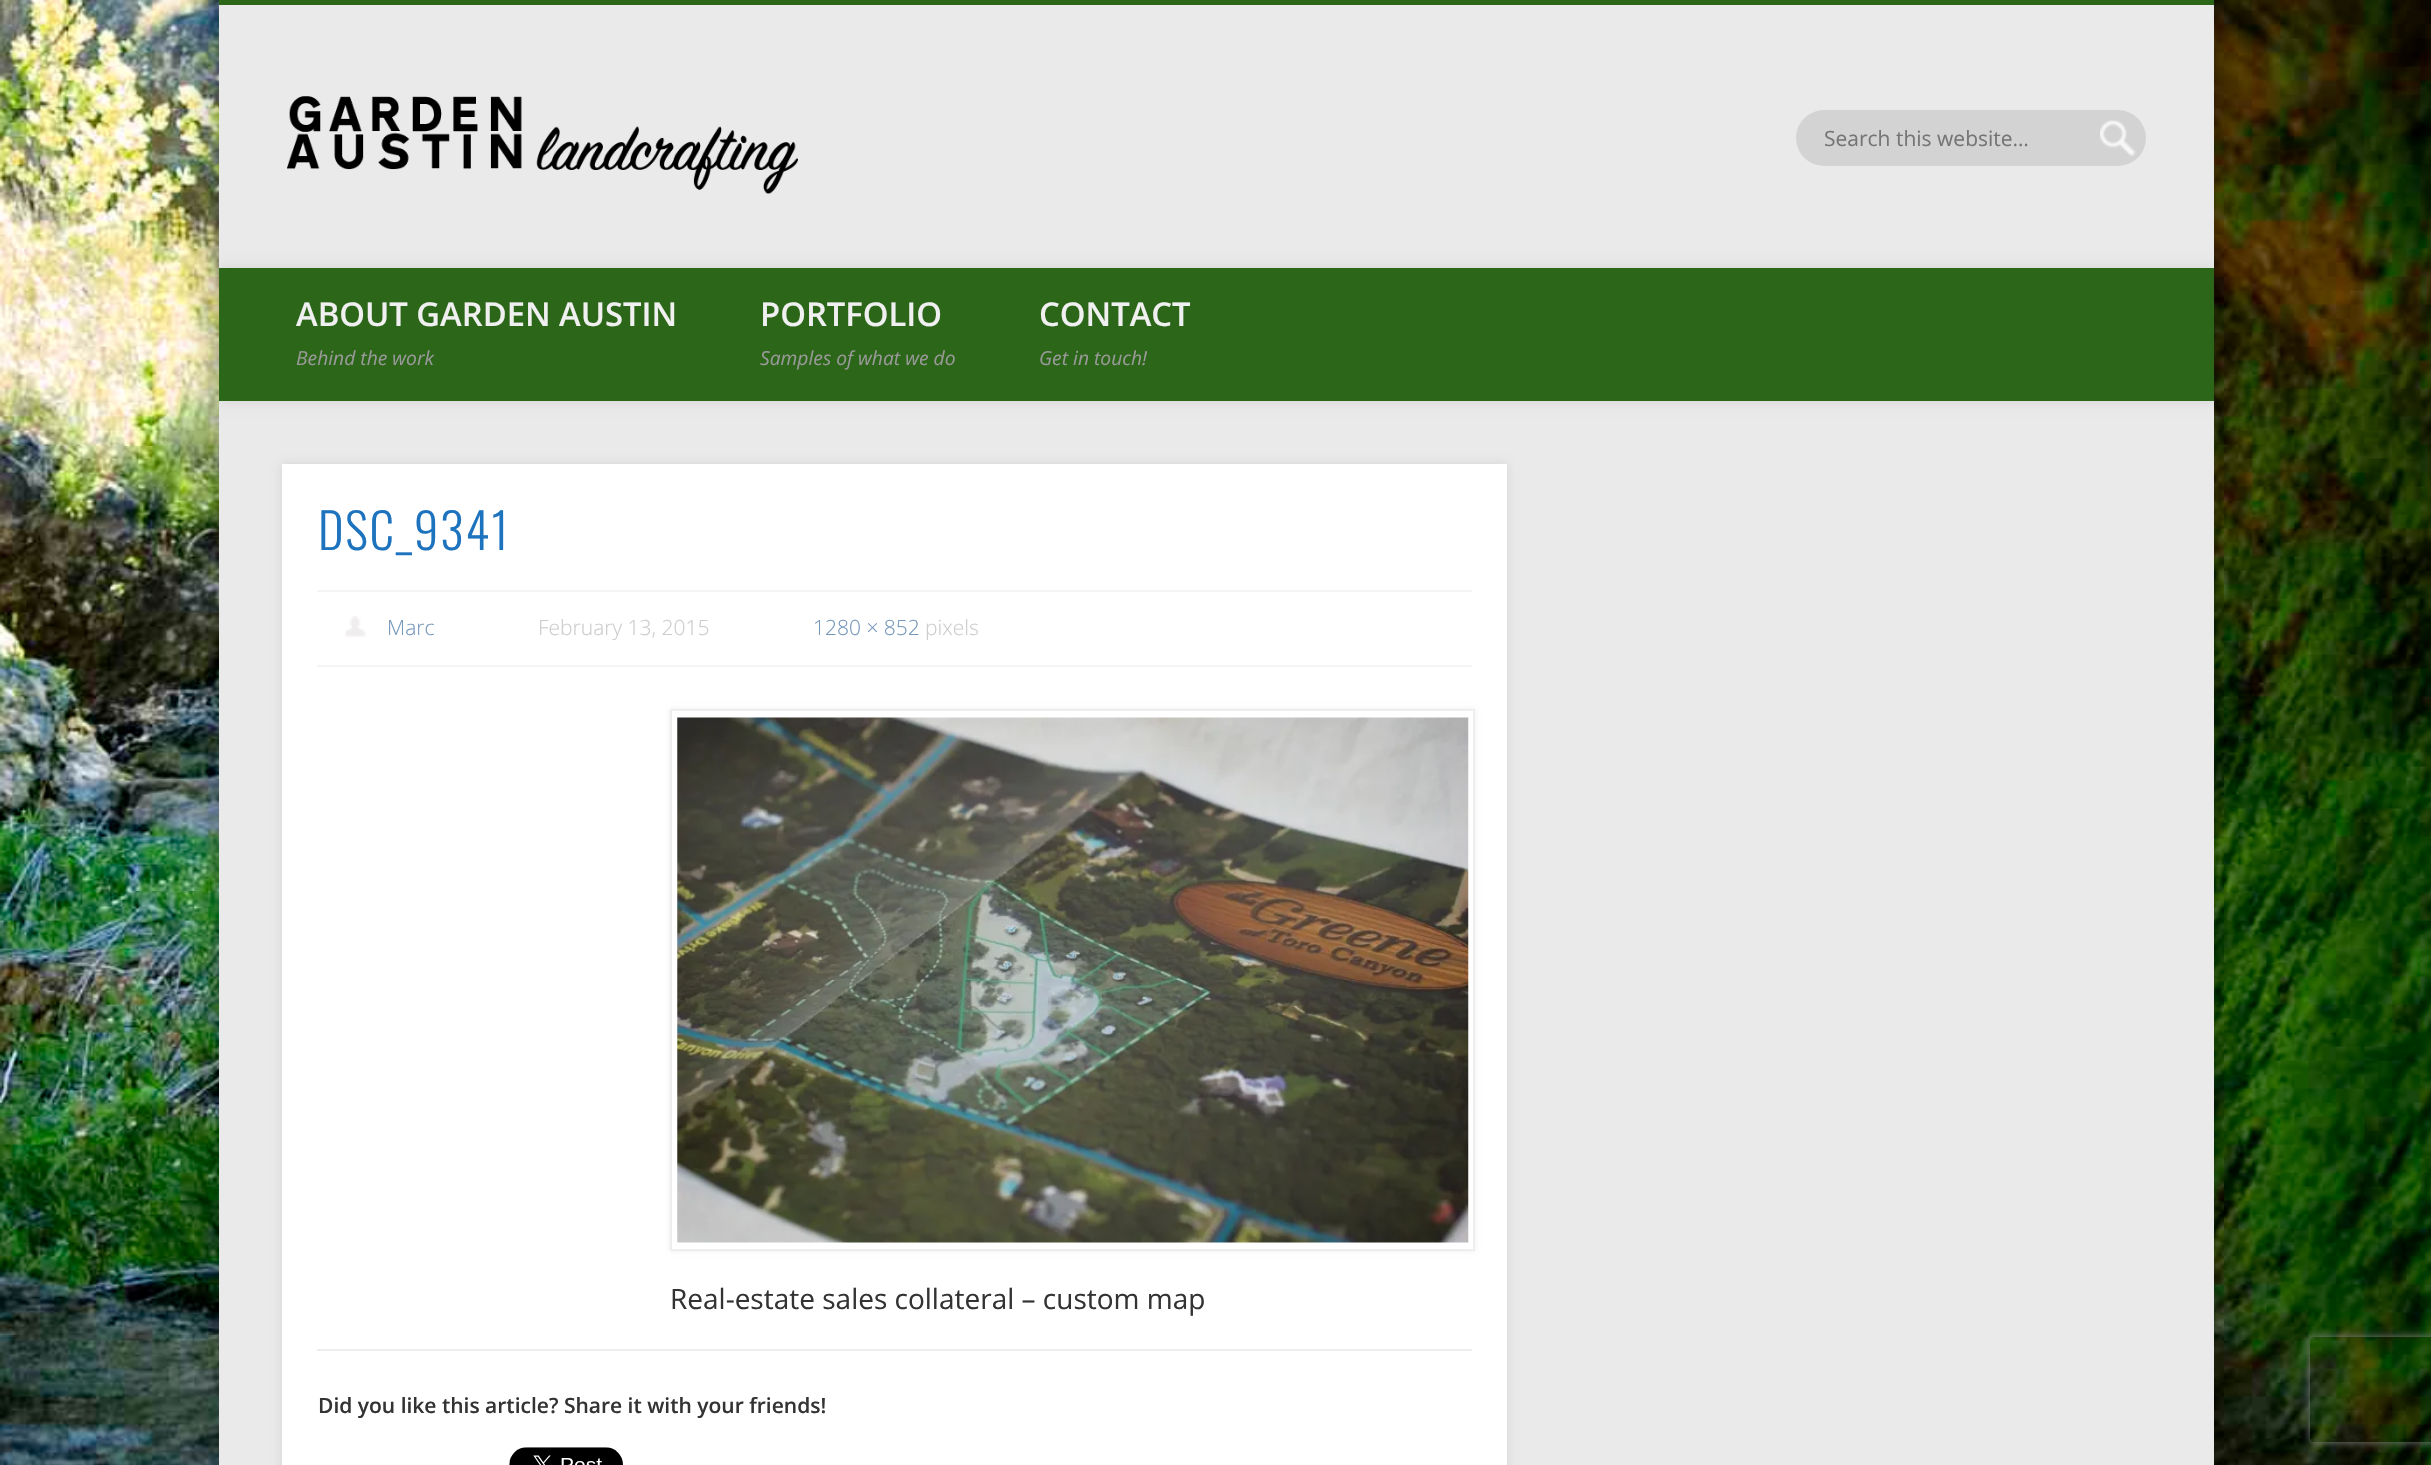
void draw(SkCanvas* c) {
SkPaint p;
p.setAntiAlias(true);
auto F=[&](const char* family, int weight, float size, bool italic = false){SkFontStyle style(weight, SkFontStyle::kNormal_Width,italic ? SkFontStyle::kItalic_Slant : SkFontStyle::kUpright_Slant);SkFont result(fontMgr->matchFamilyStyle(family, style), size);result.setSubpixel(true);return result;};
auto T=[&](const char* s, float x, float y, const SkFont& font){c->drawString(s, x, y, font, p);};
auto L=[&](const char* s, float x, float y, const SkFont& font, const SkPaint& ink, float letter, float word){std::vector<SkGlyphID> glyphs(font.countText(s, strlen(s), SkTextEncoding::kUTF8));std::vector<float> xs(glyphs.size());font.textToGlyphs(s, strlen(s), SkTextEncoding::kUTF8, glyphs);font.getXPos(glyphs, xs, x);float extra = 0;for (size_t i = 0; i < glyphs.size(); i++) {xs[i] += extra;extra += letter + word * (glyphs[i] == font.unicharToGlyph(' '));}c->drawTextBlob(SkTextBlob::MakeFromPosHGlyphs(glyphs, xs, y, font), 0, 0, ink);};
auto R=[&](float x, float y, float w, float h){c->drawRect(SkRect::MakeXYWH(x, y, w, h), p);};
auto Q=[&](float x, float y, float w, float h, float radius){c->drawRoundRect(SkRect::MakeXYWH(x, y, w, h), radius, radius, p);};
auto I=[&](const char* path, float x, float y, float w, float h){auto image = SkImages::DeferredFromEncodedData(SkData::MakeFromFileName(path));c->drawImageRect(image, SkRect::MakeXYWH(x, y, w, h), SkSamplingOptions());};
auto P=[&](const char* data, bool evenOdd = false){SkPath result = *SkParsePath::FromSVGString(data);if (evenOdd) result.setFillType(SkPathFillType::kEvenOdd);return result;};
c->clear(0xffffffff);
I("1.png",0,0,2431,1465);
p.setColor(0x66000000);
p.setMaskFilter(SkMaskFilter::MakeBlur(kNormal_SkBlurStyle, 16));
c->drawRect(SkRect::MakeXYWH(219,0,1995,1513),p);
p.setMaskFilter(nullptr);
p.setColor(0xffeaeaea);
R(219,5,1995,1460);
p.setColor(0xff2c6619);
R(219,0,1995,5);
I("2.png",287,96,511,98);
p.setColor(0xffd3d3d3);
Q(1796,110,350,56,28);
I("3.png",2100,120,36,36);
auto f1 = F("Open Sans",400,21);
p.setColor(0xff757575);
T("Search this website…",1824,146,f1);
c->save();
c->clipRect(SkRect::MakeXYWH(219,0,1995,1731));
p.setColor(0x1a000000);
p.setMaskFilter(SkMaskFilter::MakeBlur(kNormal_SkBlurStyle, 6));
c->drawRect(SkRect::MakeXYWH(219,268,1995,133),p);
p.setMaskFilter(nullptr);
c->restore();
p.setColor(0xff2c6619);
R(219,268,1995,133);
auto f2 = F("Open Sans",600,32.75);
p.setColor(0xfff0f0f0);
T("ABOUT GARDEN AUSTIN",296,326,f2);
auto f3 = F("Open Sans",400,19.25,true);
p.setColor(0xff999999);
T("Behind the work",296,365,f3);
p.setColor(0xfff0f0f0);
T("PORTFOLIO",760,326,f2);
p.setColor(0xff999999);
T("Samples of what we do",760,365,f3);
p.setColor(0xfff0f0f0);
T("CONTACT",1039,326,f2);
p.setColor(0xff999999);
T("Get in touch!",1039,365,f3);
p.setColor(0x1a000000);
p.setMaskFilter(SkMaskFilter::MakeBlur(kNormal_SkBlurStyle, 4.5));
c->drawRect(SkRect::MakeXYWH(282,464,1225,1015),p);
p.setMaskFilter(nullptr);
p.setColor(0xffffffff);
R(282,464,1225,1001);
auto f4 = F("Oswald",300,49);
p.setColor(0xff1e73be);
L("DSC_9341",318,550,f4,p,1.75,0);
p.setColor(0xfff4f4f4);
R(317,590,1155,2);
R(317,665,1155,2);
I("4.png",345,616,21,21);
auto f5 = F("Open Sans",300,21);
p.setColor(0xff7597b9);
T("Marc",387,635,f5);
p.setColor(0xffcccccc);
T("February 13, 2015",538,635,f5);
p.setColor(0xff7597b9);
T("1280 × 852",813,635,f5);
p.setColor(0xffcccccc);
T("pixels",925,635,f5);
p.setColor(0xffeeeeee);
p.setMaskFilter(SkMaskFilter::MakeBlur(kNormal_SkBlurStyle, 2.5));
c->drawRect(SkRect::MakeXYWH(670,709,805,542),p);
p.setMaskFilter(nullptr);
p.setColor(0xffffffff);
c->drawRect(SkRect::MakeXYWH(671,710,803,540),p);
p.setStroke(true);
p.setStrokeWidth(2);
p.setColor(0xffeeeeee);
c->drawRect(SkRect::MakeXYWH(671,710,803,540),p);
I("5.png",677,717,792,526);
auto f6 = F("Open Sans",400,28);
p.setStroke(false);
p.setColor(0xff333333);
T("Real-estate sales collateral – custom map",670,1309,f6);
p.setColor(0xffeeeeee);
R(317,1349,1155,2);
auto f7 = F("Open Sans",600,21);
p.setColor(0xff333333);
T("Did you like this article? Share it with your friends!",318,1413,f7);
I("6.png",509,1447,114,18);
c->save();
c->clipPath(P("M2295 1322h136v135h-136zm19 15h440c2 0 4 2 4 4v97c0 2-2 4-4 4h-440c-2 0-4-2-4-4v-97c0-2 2-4 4-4z",true),true);
p.setColor(0xff808080);
p.setMaskFilter(SkMaskFilter::MakeBlur(kNormal_SkBlurStyle, 4.5));
c->drawRoundRect(SkRect::MakeXYWH(2310,1337,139,105),4,4,p);
p.setMaskFilter(nullptr);
c->restore();
}
